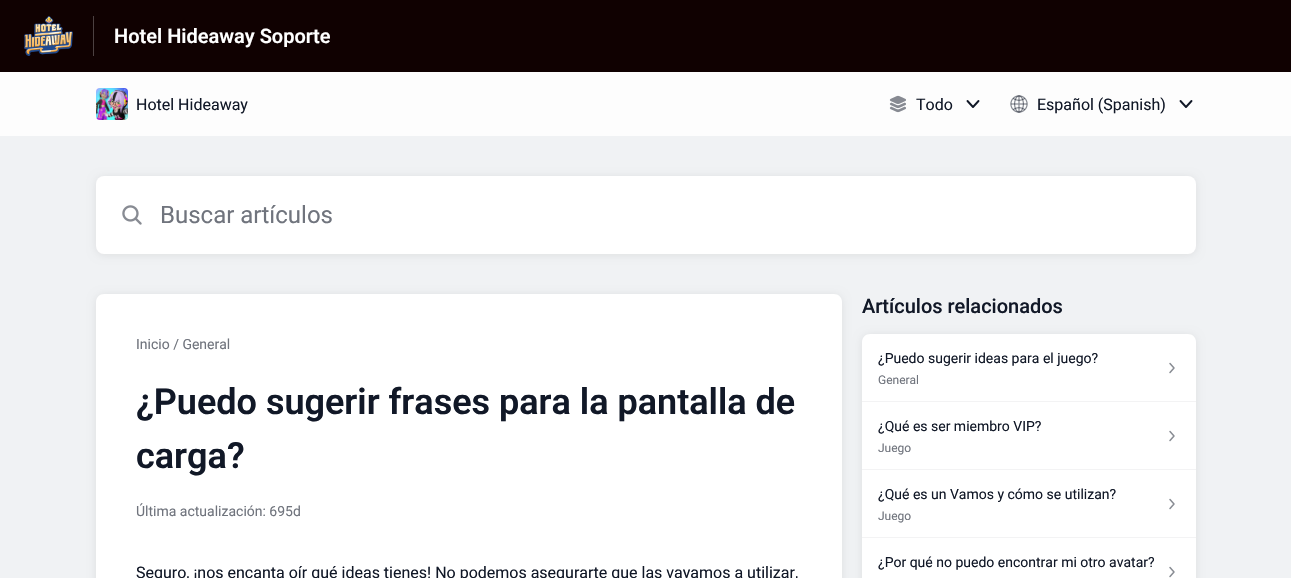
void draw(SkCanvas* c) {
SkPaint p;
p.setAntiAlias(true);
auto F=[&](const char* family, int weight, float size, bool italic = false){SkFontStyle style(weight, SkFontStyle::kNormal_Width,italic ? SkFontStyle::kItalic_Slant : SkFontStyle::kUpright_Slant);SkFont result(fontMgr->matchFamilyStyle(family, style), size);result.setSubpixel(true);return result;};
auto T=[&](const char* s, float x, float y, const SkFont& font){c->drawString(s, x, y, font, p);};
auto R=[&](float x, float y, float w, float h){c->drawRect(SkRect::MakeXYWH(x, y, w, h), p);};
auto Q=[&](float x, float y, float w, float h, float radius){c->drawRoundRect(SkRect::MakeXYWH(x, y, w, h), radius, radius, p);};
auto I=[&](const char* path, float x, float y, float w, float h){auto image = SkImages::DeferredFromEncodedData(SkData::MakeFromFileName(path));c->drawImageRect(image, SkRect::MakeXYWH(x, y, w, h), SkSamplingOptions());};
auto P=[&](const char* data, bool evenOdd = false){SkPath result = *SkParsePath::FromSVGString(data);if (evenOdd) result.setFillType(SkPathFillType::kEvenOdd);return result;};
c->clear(0xfffdfdfd);
p.setColor(0xff100101);
R(0,0,1291,72);
p.setColor(0xff4c4141);
R(93,16,1,40);
I("1.png",24,16,49,40);
auto f1 = F("Roboto",600,20);
p.setColor(0xffffffff);
T("Hotel Hideaway Soporte",114,43,f1);
I("2.png",96,88,32,32);
auto f2 = F("Roboto",400,16);
p.setColor(0xff111827);
T("Hotel Hideaway",136,110,f2);
I("3.png",889,95,17,18);
T("Todo",916,110,f2);
p.setStroke(true);
p.setStrokeWidth(1.9);
p.setStrokeCap(SkPaint::kRound_Cap);
p.setStrokeJoin(SkPaint::kRound_Join);
c->drawPath(P("M967.5 101l5.5 6l5.5-6"),p);
I("4.png",1010,95,18,18);
p.setStroke(false);
T("Español (Spanish)",1037,110,f2);
p.setStroke(true);
c->drawPath(P("M1180.5 101l5.5 6l5.5-6"),p);
p.setStroke(false);
p.setColor(0xfff0f2f4);
R(0,136,1291,442);
p.setColor(0x14000000);
p.setMaskFilter(SkMaskFilter::MakeBlur(kNormal_SkBlurStyle, 4));
c->drawRoundRect(SkRect::MakeXYWH(96,177,1100,78),8,8,p);
p.setMaskFilter(nullptr);
p.setColor(0xffffffff);
Q(96,176,1100,78,8);
I("5.png",122,205,20,20);
auto f3 = F("Roboto",400,24);
p.setColor(0xff70747d);
T("Buscar artículos",160,223,f3);
p.setColor(0x14000000);
p.setMaskFilter(SkMaskFilter::MakeBlur(kNormal_SkBlurStyle, 4));
c->drawRoundRect(SkRect::MakeXYWH(96,295,746,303),8,8,p);
p.setMaskFilter(nullptr);
p.setColor(0xffffffff);
c->drawPath(P("M104 294h730c4.5 0 8 3.5 8 8v276h-746v-276c0-4.5 3.5-8 8-8z"),p);
auto f4 = F("Roboto",400,14);
p.setColor(0xff70747d);
T("Inicio / General",136,349,f4);
auto f5 = F("Roboto",600,36);
p.setColor(0xff111827);
T("¿Puedo sugerir frases para la pantalla de",136,414,f5);
T("carga?",136,468,f5);
p.setColor(0xff70747d);
T("Última actualización: 695d",136,516,f4);
p.setColor(0xff111827);
T("Seguro, ¡nos encanta oír qué ideas tienes! No podemos asegurarte que las vayamos a utilizar,",136,578,f2);
auto f6 = F("Roboto",500,20);
T("Artículos relacionados",862,313,f6);
p.setColor(0x14000000);
p.setMaskFilter(SkMaskFilter::MakeBlur(kNormal_SkBlurStyle, 4));
c->drawRoundRect(SkRect::MakeXYWH(862,335,334,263),8,8,p);
p.setMaskFilter(nullptr);
p.setColor(0xffffffff);
c->drawPath(P("M870 334h318c4.5 0 8 3.5 8 8v236h-334v-236c0-4.5 3.5-8 8-8z"),p);
p.setColor(0xfff3f3f4);
R(862,401,334,1);
p.setColor(0xff111827);
T("¿Puedo sugerir ideas para el juego?",878,363,f4);
auto f7 = F("Roboto",400,12);
p.setColor(0xff70747d);
T("General",878,384,f7);
p.setStroke(true);
p.setStrokeWidth(1.5);
p.setColor(0xff888c93);
c->drawPath(P("M1170 363.5l4 4.5l-4 4.5"),p);
p.setStroke(false);
p.setColor(0xfff3f3f4);
R(862,469,334,1);
p.setColor(0xff111827);
T("¿Qué es ser miembro VIP?",878,431,f4);
p.setColor(0xff70747d);
T("Juego",878,452,f7);
p.setStroke(true);
p.setColor(0xff888c93);
c->drawPath(P("M1170 431.5l4 4.5l-4 4.5"),p);
p.setStroke(false);
p.setColor(0xfff3f3f4);
R(862,537,334,1);
p.setColor(0xff111827);
T("¿Qué es un Vamos y cómo se utilizan?",878,499,f4);
p.setColor(0xff70747d);
T("Juego",878,520,f7);
p.setStroke(true);
p.setColor(0xff888c93);
c->drawPath(P("M1170 499.5l4 4.5l-4 4.5"),p);
p.setStroke(false);
p.setColor(0xff111827);
T("¿Por qué no puedo encontrar mi otro avatar?",878,567,f4);
p.setStroke(true);
p.setColor(0xff888c93);
c->drawPath(P("M1170 567.5l4 4.5l-4 4.5"),p);
}
